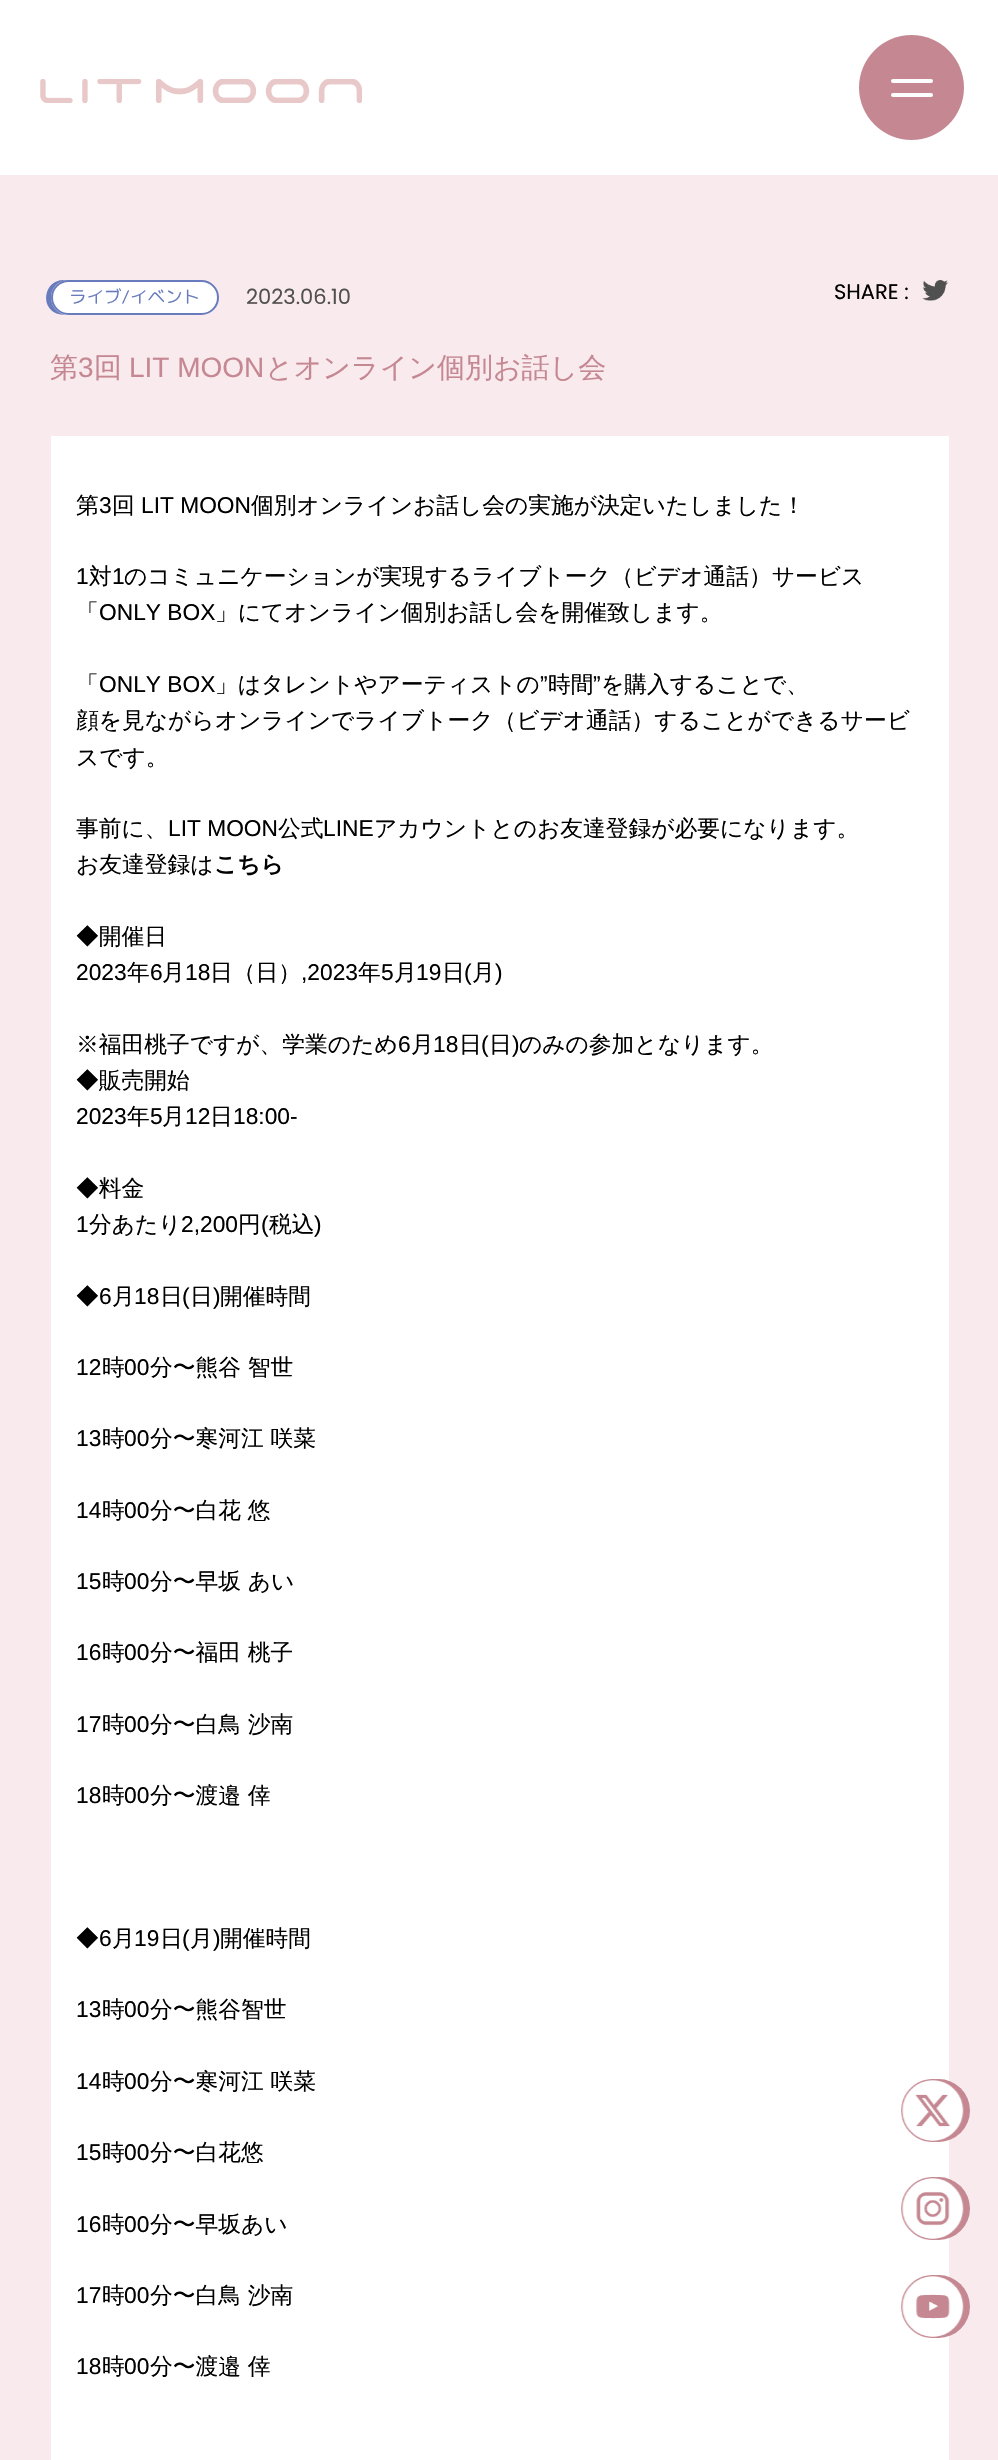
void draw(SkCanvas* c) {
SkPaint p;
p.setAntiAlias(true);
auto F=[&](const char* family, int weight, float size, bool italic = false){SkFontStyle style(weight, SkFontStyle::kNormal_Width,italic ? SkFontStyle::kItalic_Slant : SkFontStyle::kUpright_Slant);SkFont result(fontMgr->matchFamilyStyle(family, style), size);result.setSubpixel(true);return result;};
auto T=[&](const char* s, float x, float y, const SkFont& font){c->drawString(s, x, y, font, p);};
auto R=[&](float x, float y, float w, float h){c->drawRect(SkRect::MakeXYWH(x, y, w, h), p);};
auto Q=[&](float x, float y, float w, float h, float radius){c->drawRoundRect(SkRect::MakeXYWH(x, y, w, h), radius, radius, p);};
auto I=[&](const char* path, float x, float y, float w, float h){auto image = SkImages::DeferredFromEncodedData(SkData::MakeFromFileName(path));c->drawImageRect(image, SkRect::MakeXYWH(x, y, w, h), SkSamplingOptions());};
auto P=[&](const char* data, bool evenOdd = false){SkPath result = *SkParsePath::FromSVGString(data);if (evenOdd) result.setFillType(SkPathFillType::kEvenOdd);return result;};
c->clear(0xffffffff);
I("1.png",40,79,322,24);
p.setColor(0xffc58892);
c->drawCircle(911.5,87.5,52.5,p);
p.setColor(0xffffffff);
Q(891,79,42,4,2);
Q(891,93,42,4,2);
p.setColor(0xfff9eaee);
R(0,175,998,2285);
p.setColor(0xff687cbd);
c->drawPath(P("M63.5 280c-19 0-24 26.5-7 33.5c4 1.5 8 1.5 11.5 1.5c-9.5 0-17-8-17-17.5c0-9.5 7.5-17.5 17-17.5z"),p);
p.setColor(0xffffffff);
c->drawRoundRect(SkRect::MakeXYWH(52,281,166,33),16.5,16.5,p);
p.setStroke(true);
p.setStrokeWidth(2);
p.setColor(0xff687cbd);
c->drawRoundRect(SkRect::MakeXYWH(52,281,166,33),16.5,16.5,p);
auto f1 = F("Rounded Mplus 1c",400,17.5);
p.setStroke(false);
T("ライブ/イベント",69,303,f1);
auto f2 = F("Poppins",400,21);
p.setColor(0xff515050);
T("2023.06.10",246,304,f2);
p.setColor(0xff000000);
T("SHARE :",834,299,f2);
I("2.png",922,280,27,21);
auto f3 = F("WenQuanYi Zen Hei",500,28);
p.setColor(0xffc58892);
T("第",50,377,f3);
auto f4 = F("Liberation Sans",400,28);
T("3",78,377,f4);
T("回",94,377,f3);
T("LIT MOON",129,377,f4);
T("とオンライン個別お話し会",265,377,f3);
p.setColor(0xffffffff);
R(51,436,898,2024);
auto f5 = F("WenQuanYi Zen Hei",500,22.75);
p.setColor(0xff000000);
T("第",76,513,f5);
auto f6 = F("Liberation Sans",400,22.75);
T("3",99,513,f6);
T("回",112,513,f5);
T("LIT MOON",141,513,f6);
T("個別オンラインお話し会の実施が決定いたしました！",251,513,f5);
T("1",76,584,f6);
T("対",89,584,f5);
T("1",112,584,f6);
T("のコミュニケーションが実現するライブトーク（ビデオ通話）サービス",124,584,f5);
T("「",76,620,f5);
T("ONLY BOX",99,620,f6);
T("」にてオンライン個別お話し会を開催致します。",215,620,f5);
T("「",76,692,f5);
T("ONLY BOX",99,692,f6);
T("」はタレントやアーティストの",215,692,f5);
T("”",540,692,f6);
T("時間",548,692,f5);
T("”",593,692,f6);
T("を購入することで、",601,692,f5);
T("顔を見ながらオンラインでライブトーク（ビデオ通話）することができるサービ",76,728,f5);
T("スです。",76,765,f5);
T("事前に、",76,836,f5);
T("LIT MOON",168,836,f6);
T("公式",278,836,f5);
T("LINE",323,836,f6);
T("アカウントとのお友達登録が必要になります。",374,836,f5);
T("お友達登録は",76,872,f5);
auto f7 = F("WenQuanYi Zen Hei",700,22.75);
T("こちら",214,872,f7);
T("◆開催日",76,944,f5);
T("2023",76,980,f6);
T("年",127,980,f5);
T("6",150,980,f6);
T("月",162,980,f5);
T("18",185,980,f6);
T("日（日）",210,980,f5);
T(",2023",301,980,f6);
T("年",358,980,f5);
T("5",381,980,f6);
T("月",394,980,f5);
T("19",416,980,f6);
T("日",442,980,f5);
T("(",464,980,f6);
T("月",472,980,f5);
T(")",495,980,f6);
T("※福田桃子ですが、学業のため",76,1052,f5);
T("6",398,1052,f6);
T("月",411,1052,f5);
T("18",433,1052,f6);
T("日",459,1052,f5);
T("(",481,1052,f6);
T("日",489,1052,f5);
T(")",512,1052,f6);
T("のみの参加となります。",519,1052,f5);
T("◆販売開始",76,1088,f5);
T("2023",76,1124,f6);
T("年",127,1124,f5);
T("5",150,1124,f6);
T("月",162,1124,f5);
T("12",185,1124,f6);
T("日",210,1124,f5);
T("18:00-",233,1124,f6);
T("◆料金",76,1196,f5);
T("1",76,1232,f6);
T("分あたり",89,1232,f5);
T("2,200",181,1232,f6);
T("円",238,1232,f5);
T("(",261,1232,f6);
T("税込",269,1232,f5);
T(")",314,1232,f6);
T("◆",76,1304,f5);
T("6",99,1304,f6);
T("月",112,1304,f5);
T("18",134,1304,f6);
T("日",160,1304,f5);
T("(",182,1304,f6);
T("日",190,1304,f5);
T(")",213,1304,f6);
T("開催時間",220,1304,f5);
T("12",76,1375,f6);
T("時",102,1375,f5);
T("00",124,1375,f6);
T("分〜熊谷 智世",150,1375,f5);
T("13",76,1446,f6);
T("時",102,1446,f5);
T("00",124,1446,f6);
T("分〜寒河江 咲菜",150,1446,f5);
T("14",76,1518,f6);
T("時",102,1518,f5);
T("00",124,1518,f6);
T("分〜白花 悠",150,1518,f5);
T("15",76,1589,f6);
T("時",102,1589,f5);
T("00",124,1589,f6);
T("分〜早坂 あい",150,1589,f5);
T("16",76,1660,f6);
T("時",102,1660,f5);
T("00",124,1660,f6);
T("分〜福田 桃子",150,1660,f5);
T("17",76,1732,f6);
T("時",102,1732,f5);
T("00",124,1732,f6);
T("分〜白鳥 沙南",150,1732,f5);
T("18",76,1803,f6);
T("時",102,1803,f5);
T("00",124,1803,f6);
T("分〜渡邉 倖",150,1803,f5);
T("◆",76,1946,f5);
T("6",99,1946,f6);
T("月",112,1946,f5);
T("19",134,1946,f6);
T("日",160,1946,f5);
T("(",182,1946,f6);
T("月",190,1946,f5);
T(")",213,1946,f6);
T("開催時間",220,1946,f5);
T("13",76,2017,f6);
T("時",102,2017,f5);
T("00",124,2017,f6);
T("分〜熊谷智世",150,2017,f5);
T("14",76,2089,f6);
T("時",102,2089,f5);
T("00",124,2089,f6);
T("分〜寒河江 咲菜",150,2089,f5);
T("15",76,2160,f6);
T("時",102,2160,f5);
T("00",124,2160,f6);
T("分〜白花悠",150,2160,f5);
T("16",76,2232,f6);
T("時",102,2232,f5);
T("00",124,2232,f6);
T("分〜早坂あい",150,2232,f5);
T("17",76,2303,f6);
T("時",102,2303,f5);
T("00",124,2303,f6);
T("分〜白鳥 沙南",150,2303,f5);
T("18",76,2374,f6);
T("時",102,2374,f5);
T("00",124,2374,f6);
T("分〜渡邉 倖",150,2374,f5);
p.setColor(0xffc58892);
c->drawCircle(938.5,2110.5,31.5,p);
I("3.png",901,2079,63,63);
c->drawCircle(938.5,2208.5,31.5,p);
I("4.png",901,2177,63,63);
c->drawCircle(938.5,2306.5,31.5,p);
I("5.png",901,2275,63,63);
}
